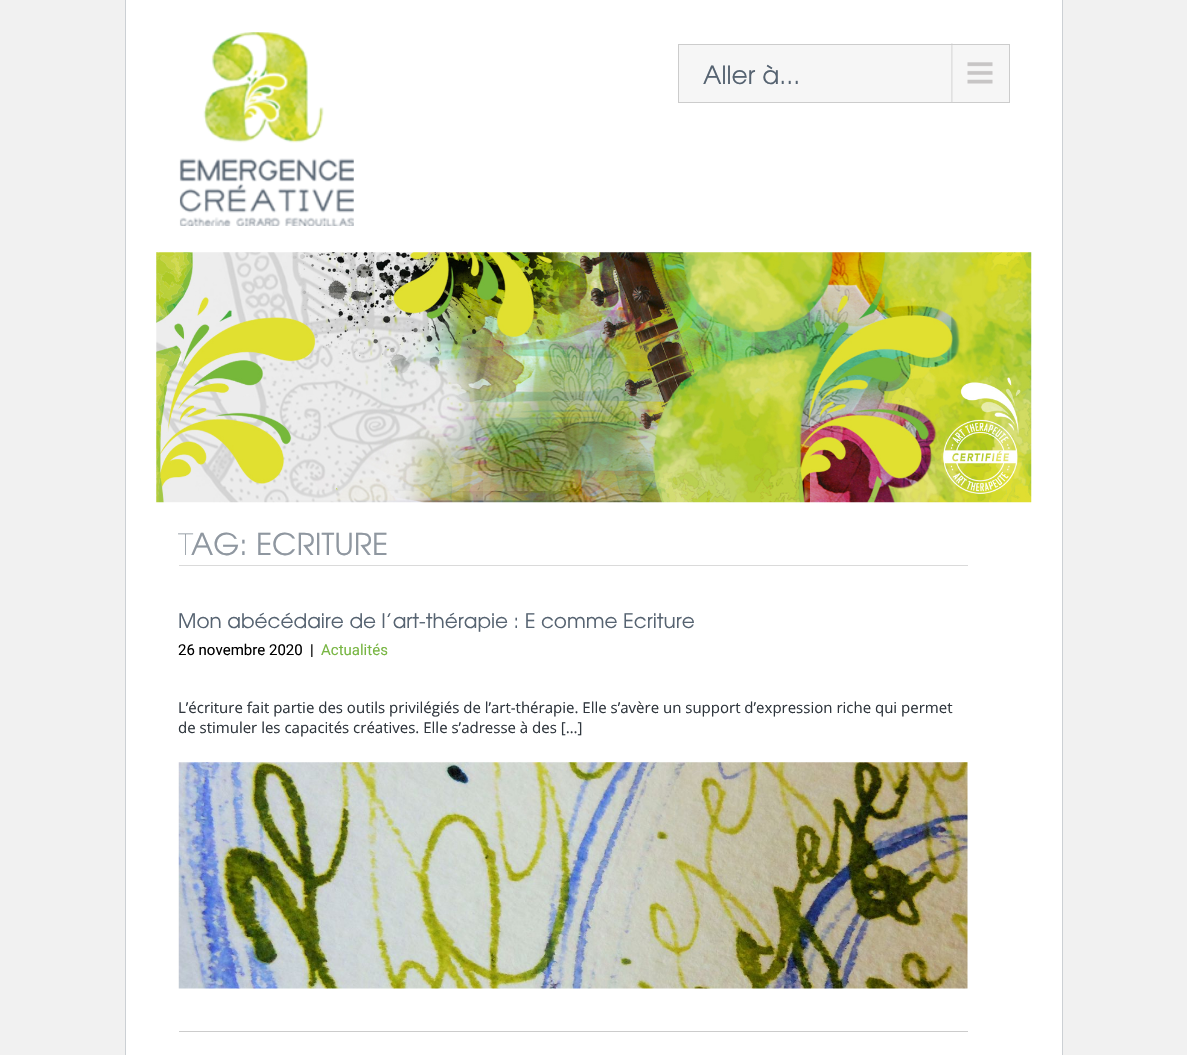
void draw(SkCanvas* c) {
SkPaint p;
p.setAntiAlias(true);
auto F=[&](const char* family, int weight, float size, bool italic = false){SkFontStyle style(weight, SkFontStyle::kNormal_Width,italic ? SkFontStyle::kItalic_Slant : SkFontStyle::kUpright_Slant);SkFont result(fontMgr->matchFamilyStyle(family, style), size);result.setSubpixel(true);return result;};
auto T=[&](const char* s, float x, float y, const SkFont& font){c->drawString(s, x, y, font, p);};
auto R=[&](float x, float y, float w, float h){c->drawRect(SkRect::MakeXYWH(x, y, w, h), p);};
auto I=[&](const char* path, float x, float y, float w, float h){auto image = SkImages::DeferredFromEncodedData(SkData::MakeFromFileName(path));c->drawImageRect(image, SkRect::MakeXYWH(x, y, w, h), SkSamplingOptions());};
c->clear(0xfff1f1f1);
p.setColor(0xffffffff);
c->drawRect(SkRect::MakeXYWH(125.5,-.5,937,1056),p);
p.setStroke(true);
p.setStrokeWidth(1);
p.setColor(0xffccd0d4);
c->drawRect(SkRect::MakeXYWH(125.5,-.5,937,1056),p);
I("1.png",179,32,175,194);
p.setStroke(false);
p.setColor(0xfff6f6f6);
R(679,45,330,57);
I("2.png",951,43,42,59);
p.setStroke(true);
p.setColor(0xffcccccc);
c->drawRect(SkRect::MakeXYWH(678.5,44.5,331,58),p);
auto f1 = F("TeX Gyre Adventor",400,25);
p.setStroke(false);
p.setColor(0xff566371);
T("Aller à...",703,84,f1);
I("3.png",156,252,876,251);
p.setColor(0xffdadada);
R(179,565,789,1);
auto f2 = F("Noto Sans",100,30);
p.setColor(0xff8f97a0);
T("T",178,555,f2);
auto f3 = F("TeX Gyre Adventor",400,30);
T("AG: ECRITURE",191,555,f3);
p.setColor(0xffcccccc);
R(179,1031,789,1);
auto f4 = F("TeX Gyre Adventor",400,20);
p.setColor(0xff566371);
T("Mon abécédaire de l’art-thérapie : E comme Ecriture",178,628,f4);
auto f5 = F("Roboto",400,15);
p.setColor(0xff000000);
T("26 novembre 2020",178,655,f5);
T("|",310,655,f5);
p.setColor(0xff78b643);
T("Actualités",321,655,f5);
auto f6 = F("Open Sans",400,15);
p.setColor(0xff2f363d);
T("L’écriture fait partie des outils privilégiés de l’art-thérapie. Elle s’avère un support d’expression riche qui permet",178,713,f6);
T("de stimuler les capacités créatives. Elle s’adresse à des […]",178,733,f6);
I("4.png",178,762,790,227);
}
